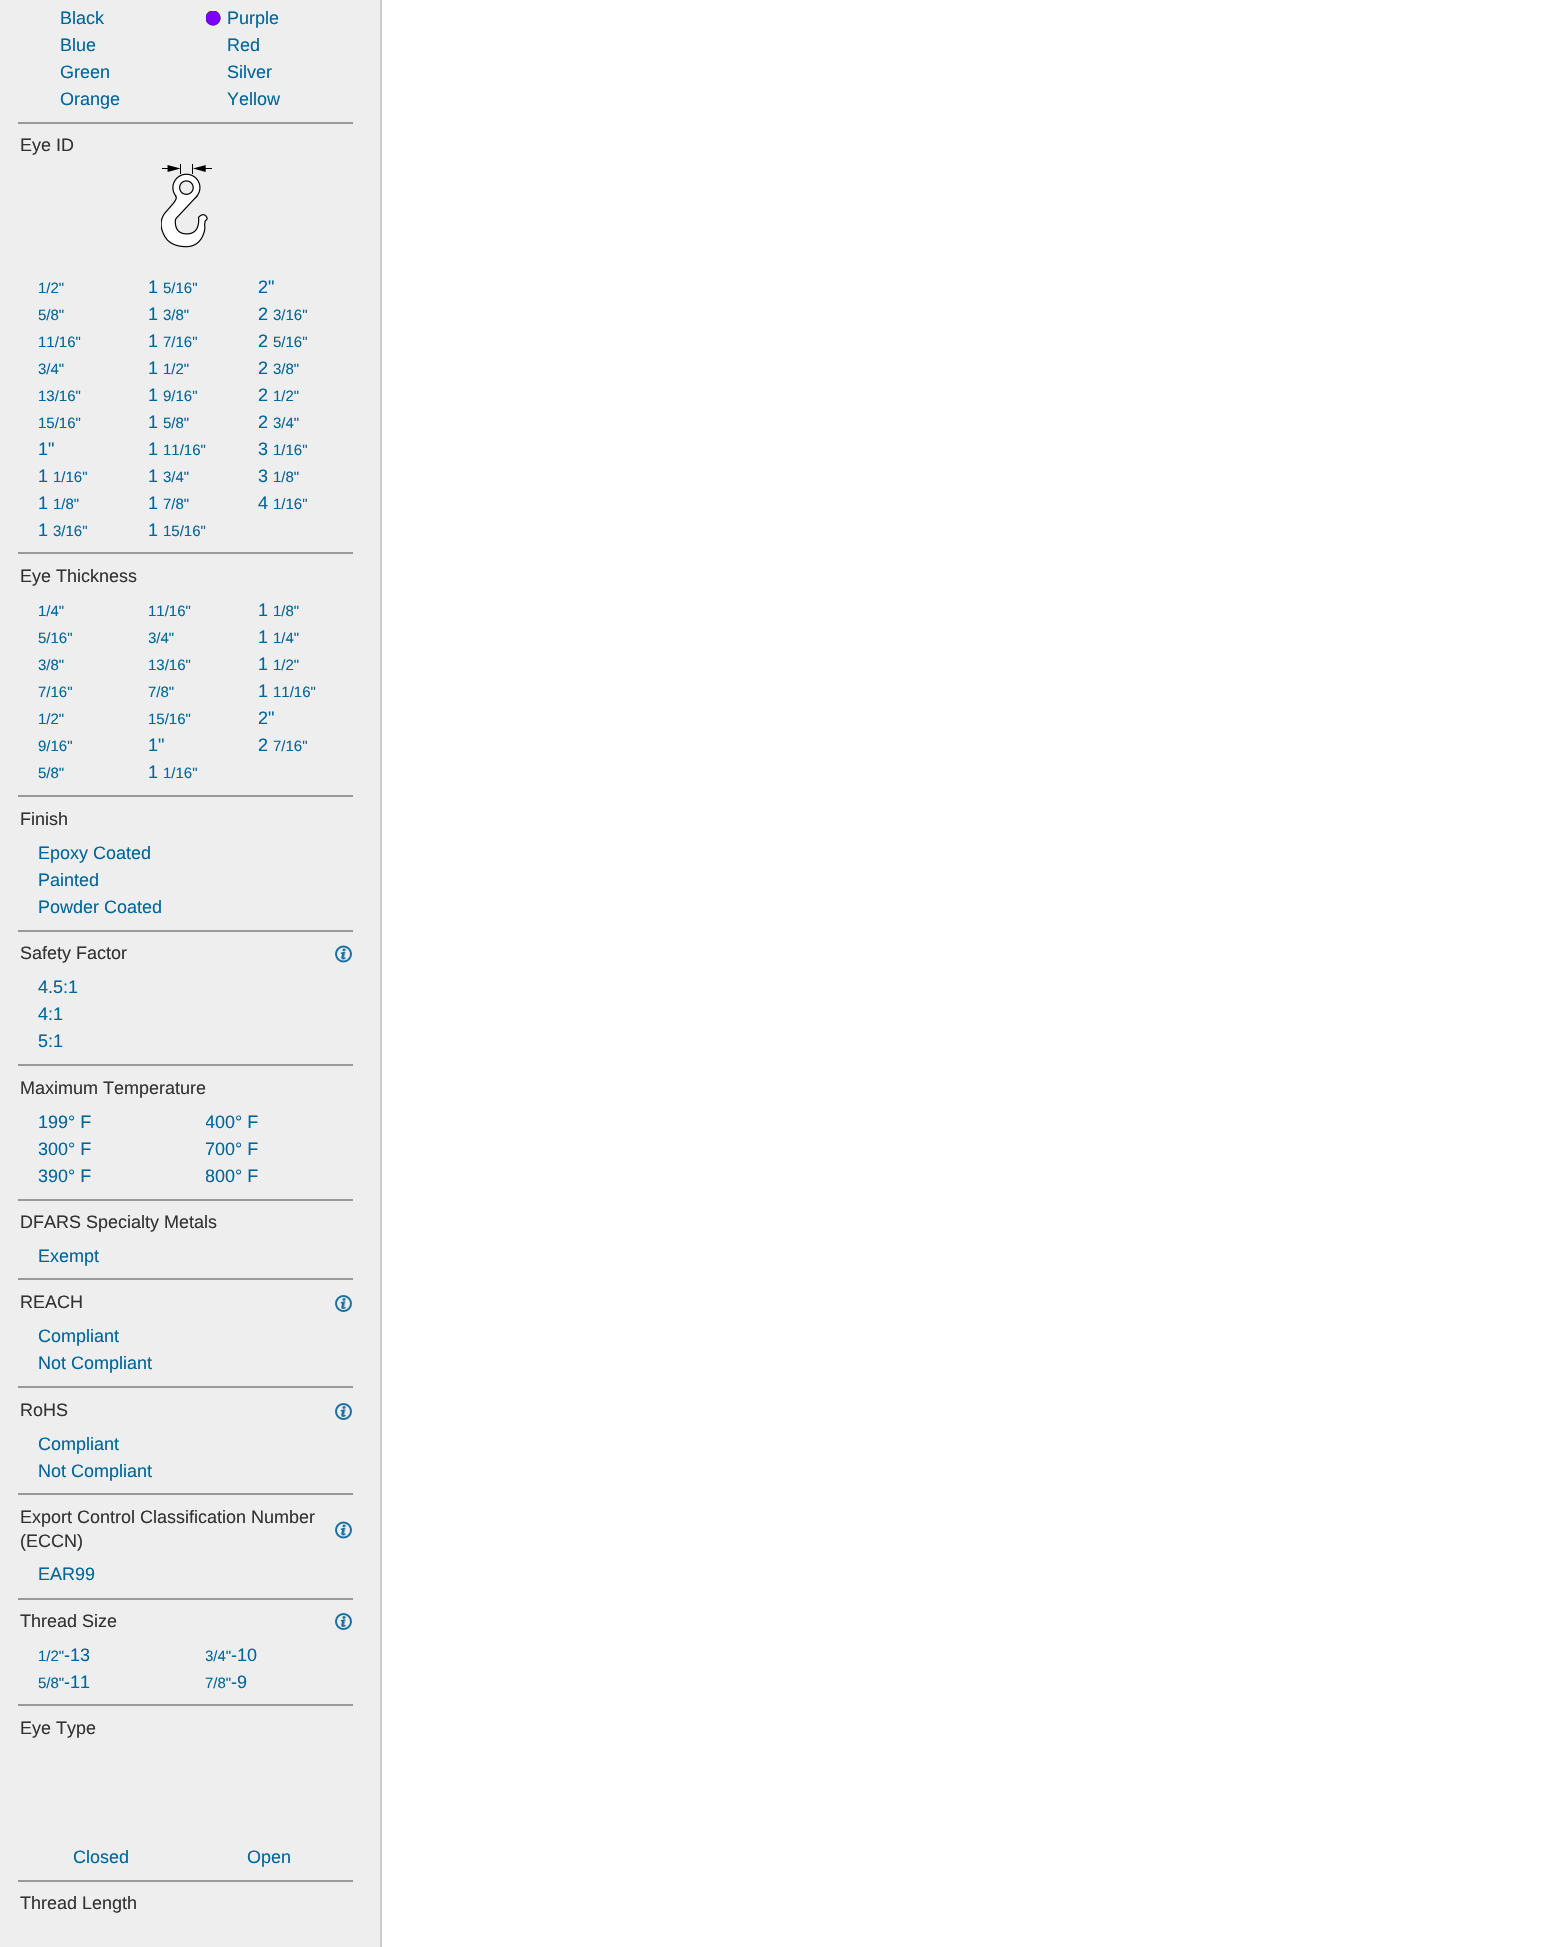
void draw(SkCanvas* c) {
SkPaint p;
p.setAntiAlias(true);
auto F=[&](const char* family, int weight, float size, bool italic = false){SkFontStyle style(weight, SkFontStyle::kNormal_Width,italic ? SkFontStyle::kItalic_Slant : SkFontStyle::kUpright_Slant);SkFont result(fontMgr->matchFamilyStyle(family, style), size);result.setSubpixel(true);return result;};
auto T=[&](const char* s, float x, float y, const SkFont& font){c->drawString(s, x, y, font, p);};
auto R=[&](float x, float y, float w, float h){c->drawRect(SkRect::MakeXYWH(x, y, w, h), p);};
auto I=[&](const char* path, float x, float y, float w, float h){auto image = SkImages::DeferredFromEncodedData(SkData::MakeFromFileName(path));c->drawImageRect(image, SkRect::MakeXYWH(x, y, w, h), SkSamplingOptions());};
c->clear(0xffffffff);
p.setColor(0xffeeeeee);
R(0,0,380,1947);
p.setColor(0xffcccccc);
R(380,0,2,1947);
auto f1 = F("Liberation Sans",400,18);
p.setColor(0xff006699);
T("Black",60,24,f1);
T("Blue",60,51,f1);
T("Green",60,78,f1);
T("Orange",60,105,f1);
I("1.png",206,11,15,15);
T("Purple",227,24,f1);
T("Red",227,51,f1);
T("Silver",227,78,f1);
T("Yellow",227,105,f1);
p.setColor(0xff999999);
R(18,122,335,2);
p.setColor(0xff333333);
T("Eye ID",20,151,f1);
I("2.png",161,164,51,84);
auto f2 = F("Liberation Sans",400,15);
p.setColor(0xff006699);
T("1/2\"",38,293,f2);
T("5/8\"",38,320,f2);
T("11/16\"",38,347,f2);
T("3/4\"",38,374,f2);
T("13/16\"",38,401,f2);
T("15/16\"",38,428,f2);
T("1\"",38,455,f1);
T("1",38,482,f1);
T("1/16\"",53,482,f2);
T("1",38,509,f1);
T("1/8\"",53,509,f2);
T("1",38,536,f1);
T("3/16\"",53,536,f2);
T("1",148,293,f1);
T("5/16\"",163,293,f2);
T("1",148,320,f1);
T("3/8\"",163,320,f2);
T("1",148,347,f1);
T("7/16\"",163,347,f2);
T("1",148,374,f1);
T("1/2\"",163,374,f2);
T("1",148,401,f1);
T("9/16\"",163,401,f2);
T("1",148,428,f1);
T("5/8\"",163,428,f2);
T("1",148,455,f1);
T("11/16\"",163,455,f2);
T("1",148,482,f1);
T("3/4\"",163,482,f2);
T("1",148,509,f1);
T("7/8\"",163,509,f2);
T("1",148,536,f1);
T("15/16\"",163,536,f2);
T("2\"",258,293,f1);
T("2",258,320,f1);
T("3/16\"",273,320,f2);
T("2",258,347,f1);
T("5/16\"",273,347,f2);
T("2",258,374,f1);
T("3/8\"",273,374,f2);
T("2",258,401,f1);
T("1/2\"",273,401,f2);
T("2",258,428,f1);
T("3/4\"",273,428,f2);
T("3",258,455,f1);
T("1/16\"",273,455,f2);
T("3",258,482,f1);
T("1/8\"",273,482,f2);
T("4",258,509,f1);
T("1/16\"",273,509,f2);
p.setColor(0xff999999);
R(18,552,335,2);
p.setColor(0xff333333);
T("Eye Thickness",20,582,f1);
p.setColor(0xff006699);
T("1/4\"",38,616,f2);
T("5/16\"",38,643,f2);
T("3/8\"",38,670,f2);
T("7/16\"",38,697,f2);
T("1/2\"",38,724,f2);
T("9/16\"",38,751,f2);
T("5/8\"",38,778,f2);
T("11/16\"",148,616,f2);
c->save();
c->clipRect(SkRect::MakeXYWH(149,627,91,21));
T("3/4\"",148,643,f2);
c->restore();
T("13/16\"",148,670,f2);
T("7/8\"",148,697,f2);
T("15/16\"",148,724,f2);
T("1\"",148,751,f1);
T("1",148,778,f1);
T("1/16\"",163,778,f2);
T("1",258,616,f1);
T("1/8\"",273,616,f2);
T("1",258,643,f1);
T("1/4\"",273,643,f2);
T("1",258,670,f1);
T("1/2\"",273,670,f2);
T("1",258,697,f1);
T("11/16\"",273,697,f2);
T("2\"",258,724,f1);
T("2",258,751,f1);
T("7/16\"",273,751,f2);
p.setColor(0xff999999);
R(18,795,335,2);
p.setColor(0xff333333);
T("Finish",20,825,f1);
p.setColor(0xff006699);
T("Epoxy Coated",38,859,f1);
T("Painted",38,886,f1);
T("Powder Coated",38,913,f1);
p.setColor(0xff999999);
R(18,930,335,2);
p.setColor(0xff333333);
T("Safety Factor",20,959,f1);
I("3.png",335,945,17,18);
p.setColor(0xff006699);
T("4.5:1",38,993,f1);
T("4:1",38,1020,f1);
T("5:1",38,1047,f1);
p.setColor(0xff999999);
R(18,1064,335,2);
p.setColor(0xff333333);
T("Maximum Temperature",20,1094,f1);
p.setColor(0xff006699);
T("199° F",38,1128,f1);
T("300° F",38,1155,f1);
T("390° F",38,1182,f1);
c->save();
c->clipRect(SkRect::MakeXYWH(206,1112,148,21));
T("400° F",205,1128,f1);
c->restore();
T("700° F",205,1155,f1);
c->save();
c->clipRect(SkRect::MakeXYWH(206,1166,148,21));
T("800° F",205,1182,f1);
c->restore();
p.setColor(0xff999999);
R(18,1199,335,2);
p.setColor(0xff333333);
T("DFARS Specialty Metals",20,1228,f1);
p.setColor(0xff006699);
T("Exempt",38,1262,f1);
p.setColor(0xff999999);
R(18,1278,335,2);
p.setColor(0xff333333);
T("REACH",20,1308,f1);
I("4.png",335,1295,17,17);
p.setColor(0xff006699);
T("Compliant",38,1342,f1);
T("Not Compliant",38,1369,f1);
p.setColor(0xff999999);
R(18,1386,335,2);
p.setColor(0xff333333);
T("RoHS",20,1416,f1);
I("4.png",335,1403,17,17);
p.setColor(0xff006699);
T("Compliant",38,1450,f1);
T("Not Compliant",38,1477,f1);
p.setColor(0xff999999);
R(18,1493,335,2);
p.setColor(0xff333333);
T("Export Control Classification Number",20,1523,f1);
T("(ECCN)",20,1547,f1);
I("3.png",335,1521,17,18);
p.setColor(0xff006699);
T("EAR99",38,1580,f1);
p.setColor(0xff999999);
R(18,1598,335,2);
p.setColor(0xff333333);
T("Thread Size",20,1627,f1);
I("4.png",335,1613,17,17);
p.setColor(0xff006699);
T("1/2\"",38,1661,f2);
T("-13",64,1661,f1);
T("5/8\"",38,1688,f2);
T("-11",64,1688,f1);
c->save();
c->clipRect(SkRect::MakeXYWH(206,1644,148,21));
T("3/4\"",205,1661,f2);
c->restore();
T("-10",231,1661,f1);
T("7/8\"",205,1688,f2);
T("-9",231,1688,f1);
p.setColor(0xff999999);
R(18,1704,335,2);
p.setColor(0xff333333);
T("Eye Type",20,1734,f1);
p.setColor(0xff006699);
T("Closed",73,1863,f1);
T("Open",247,1863,f1);
p.setColor(0xff999999);
R(18,1880,335,2);
p.setColor(0xff333333);
T("Thread Length",20,1909,f1);
}
